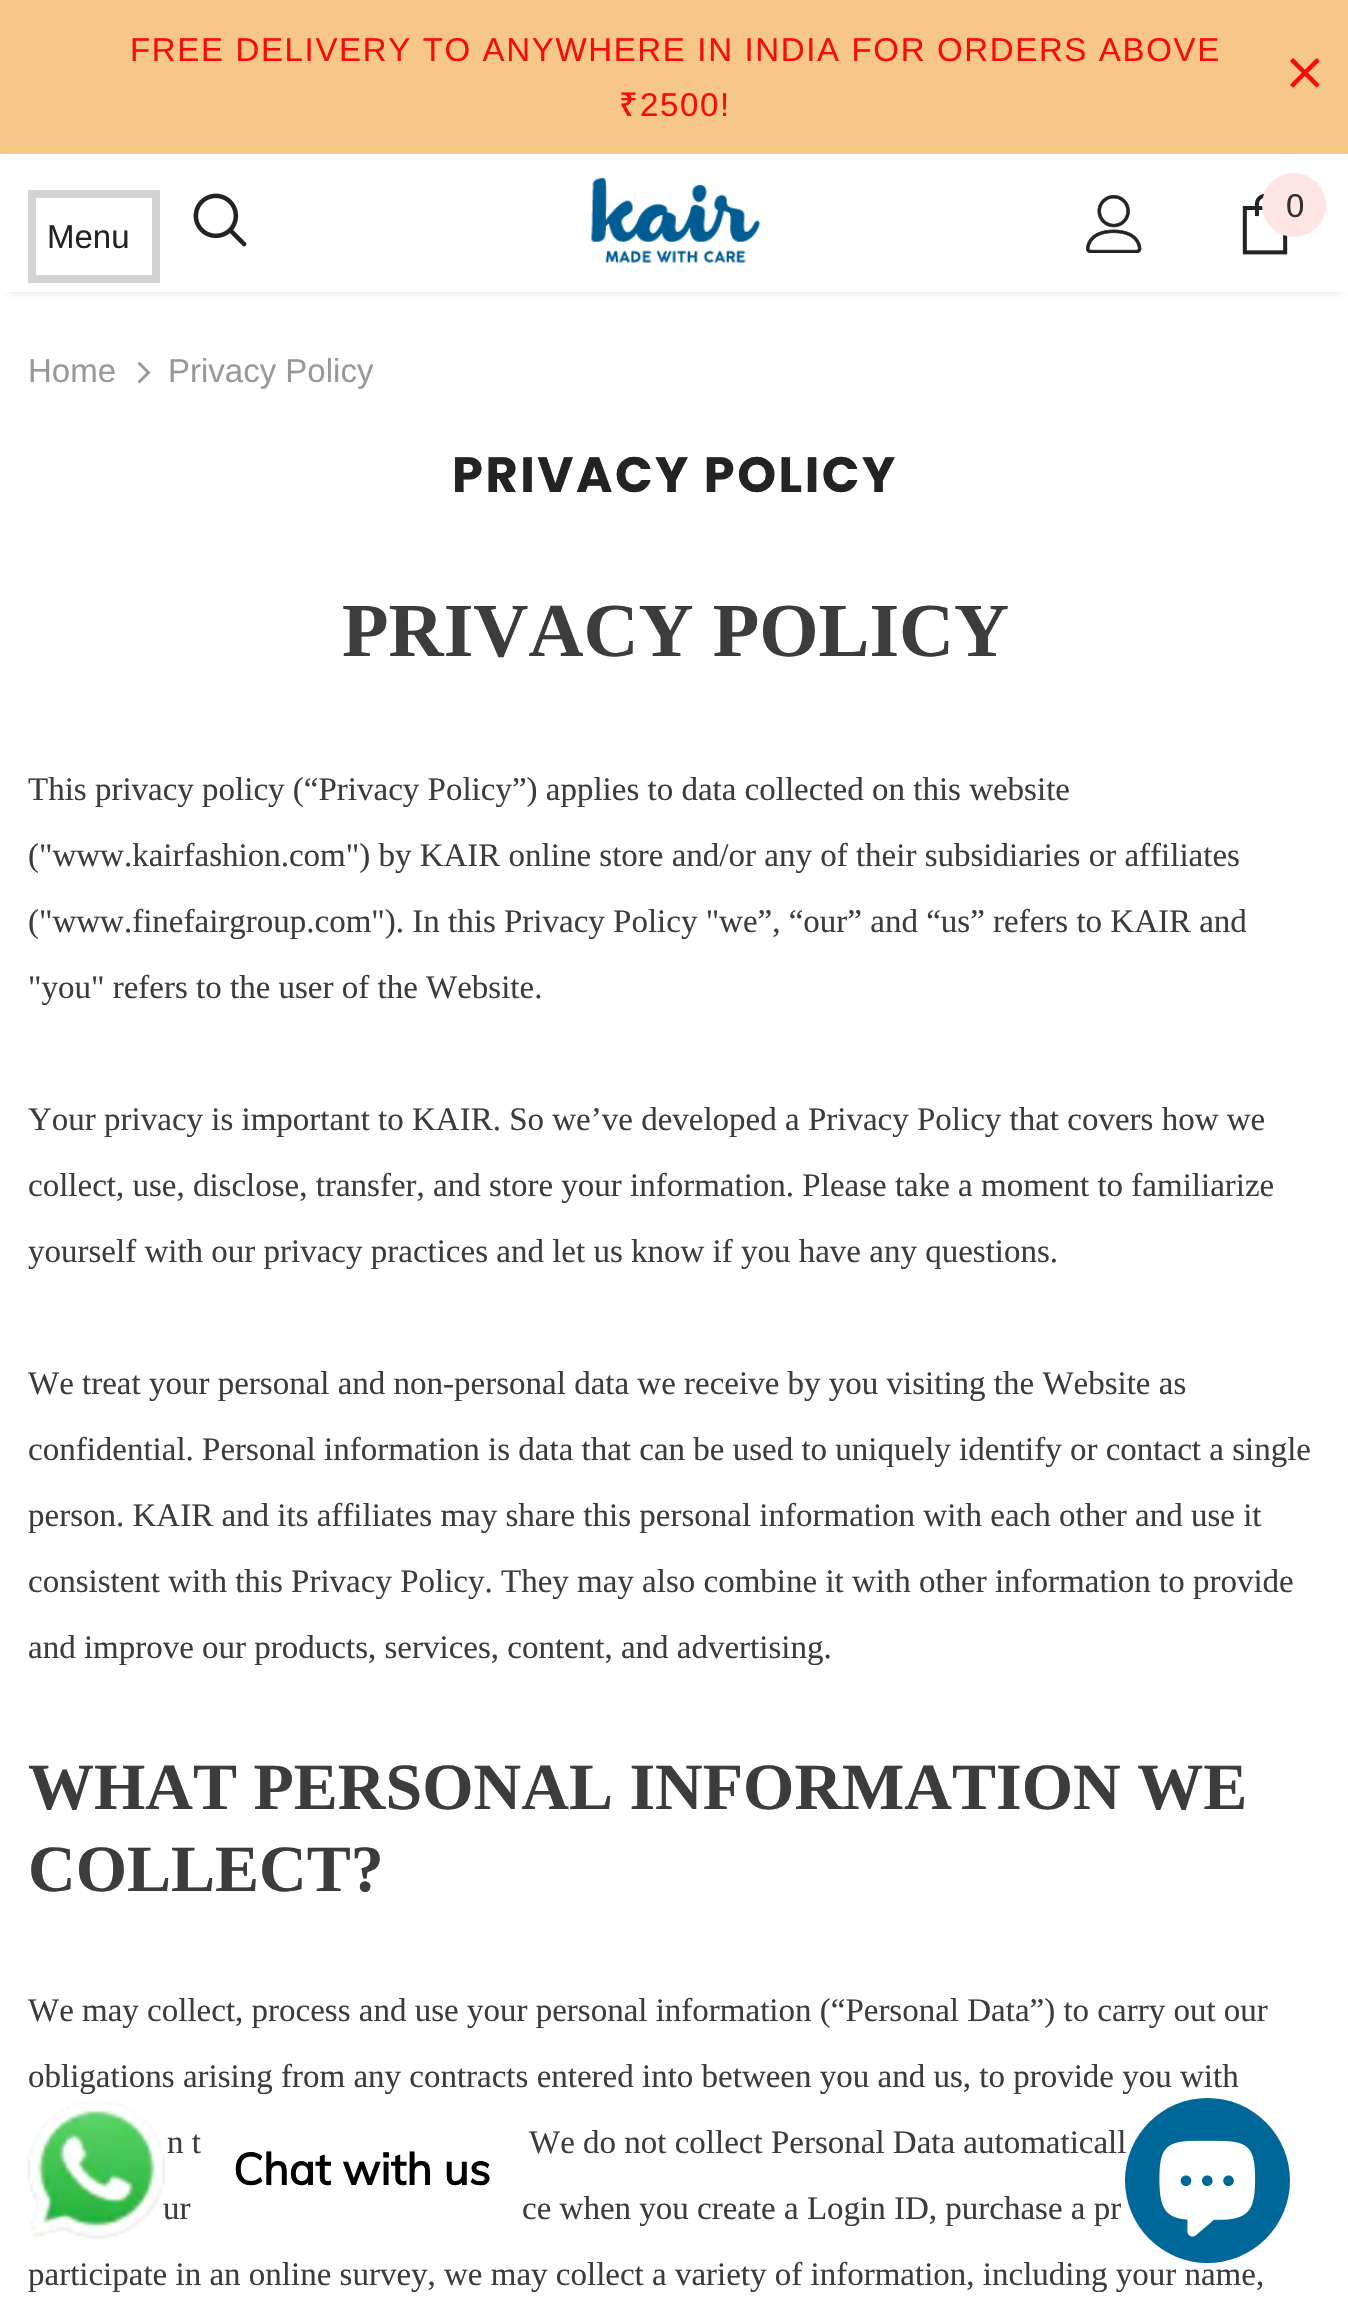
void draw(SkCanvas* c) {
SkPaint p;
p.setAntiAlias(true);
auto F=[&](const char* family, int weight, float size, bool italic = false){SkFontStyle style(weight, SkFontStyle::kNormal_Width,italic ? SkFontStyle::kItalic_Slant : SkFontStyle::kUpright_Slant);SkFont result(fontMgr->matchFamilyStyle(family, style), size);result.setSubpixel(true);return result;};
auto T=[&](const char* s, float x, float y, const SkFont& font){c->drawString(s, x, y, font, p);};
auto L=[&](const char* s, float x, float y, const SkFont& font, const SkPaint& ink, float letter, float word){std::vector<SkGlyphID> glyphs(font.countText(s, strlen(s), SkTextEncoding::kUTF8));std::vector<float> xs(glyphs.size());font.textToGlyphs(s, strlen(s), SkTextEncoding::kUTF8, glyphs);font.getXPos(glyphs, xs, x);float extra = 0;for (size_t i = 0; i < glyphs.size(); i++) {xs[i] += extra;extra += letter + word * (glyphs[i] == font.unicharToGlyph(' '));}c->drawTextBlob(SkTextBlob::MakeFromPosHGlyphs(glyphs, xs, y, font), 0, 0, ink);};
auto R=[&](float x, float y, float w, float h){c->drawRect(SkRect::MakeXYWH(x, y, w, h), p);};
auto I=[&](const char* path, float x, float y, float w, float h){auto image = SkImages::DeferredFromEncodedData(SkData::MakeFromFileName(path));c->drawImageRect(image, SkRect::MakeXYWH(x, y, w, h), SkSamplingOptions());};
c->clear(0xffffffff);
p.setColor(0xfff7c785);
R(0,0,1348,154);
auto f1 = F("Liberation Sans",400,33);
p.setColor(0xfff70b0b);
L("FREE DELIVERY TO ANYWHERE IN INDIA FOR ORDERS ABOVE",130,61,f1,p,1.65,0);
auto f2 = F("Noto Sans",500,33);
L("₹",619,116,f2,p,1.65,0);
L("2500!",640,116,f1,p,1.65,0);
I("1.png",1290,58,30,30);
p.setColor(0x1f000000);
p.setMaskFilter(SkMaskFilter::MakeBlur(kNormal_SkBlurStyle, 4));
c->drawRect(SkRect::MakeXYWH(8,171,1334,121),p);
p.setMaskFilter(nullptr);
p.setColor(0xffffffff);
R(2,165,1346,127);
I("2.png",591,177,169,86);
I("3.png",1086,195,56,58);
I("4.png",1242,193,46,62);
p.setColor(0xffffe5e5);
c->drawCircle(1294,205,32,p);
p.setColor(0xff323232);
T("0",1286,217,f1);
p.setStroke(true);
p.setStrokeWidth(8);
p.setColor(0xffd3d3d3);
c->drawRect(SkRect::MakeXYWH(32,194,124,85),p);
p.setStroke(false);
p.setColor(0xff232323);
T("Menu",47,248,f1);
I("5.png",193,193,54,54);
p.setColor(0xff999999);
T("Home",28,382,f1);
I("6.png",137,362,14,22);
T("Privacy Policy",168,382,f1);
auto f3 = F("Poppins",700,49.5);
p.setColor(0xff232323);
L("PRIVACY POLICY",452,492,f3,p,2.5,0);
auto f4 = F("Liberation Serif",700,76.25);
p.setColor(0xff3c3c3c);
T("PRIVACY POLICY",342,656,f4);
auto f5 = F("Liberation Serif",400,33);
T("This privacy policy (“Privacy Policy”) applies to data collected on this website",28,800,f5);
T("(\"www.kairfashion.com\") by KAIR online store and/or any of their subsidiaries or affiliates",28,866,f5);
T("(\"www.finefairgroup.com\"). In this Privacy Policy \"we”, “our” and “us” refers to KAIR and",28,932,f5);
T("\"you\" refers to the user of the Website.",28,998,f5);
T("Your privacy is important to KAIR. So we’ve developed a Privacy Policy that covers how we",28,1130,f5);
T("collect, use, disclose, transfer, and store your information. Please take a moment to familiarize",28,1196,f5);
T("yourself with our privacy practices and let us know if you have any questions.",28,1262,f5);
T("We treat your personal and non-personal data we receive by you visiting the Website as",28,1394,f5);
T("confidential. Personal information is data that can be used to uniquely identify or contact a single",28,1460,f5);
T("person. KAIR and its affiliates may share this personal information with each other and use it",28,1526,f5);
T("consistent with this Privacy Policy. They may also combine it with other information to provide",28,1592,f5);
T("and improve our products, services, content, and advertising.",28,1658,f5);
auto f6 = F("Liberation Serif",700,66);
T("WHAT PERSONAL INFORMATION WE",28,1809,f6);
T("COLLECT?",28,1891,f6);
T("We may collect, process and use your personal information (“Personal Data”) to carry out our",28,2021,f5);
T("obligations arising from any contracts entered into between you and us, to provide you with",28,2087,f5);
T("n t",167,2153,f5);
T("We do not collect Personal Data automaticall",529,2153,f5);
T("ur",163,2219,f5);
T("ce when you create a Login ID, purchase a pr",522,2219,f5);
T("participate in an online survey, we may collect a variety of information, including your name,",28,2285,f5);
I("7.png",27,2101,138,138);
auto f7 = F("Muli",700,44);
p.setColor(0xff000000);
T("Chat with us",233,2185,f7);
p.setColor(0xff006899);
c->drawCircle(1207.5,2180.5,82.5,p);
I("8.png",1159,2140,97,97);
}
